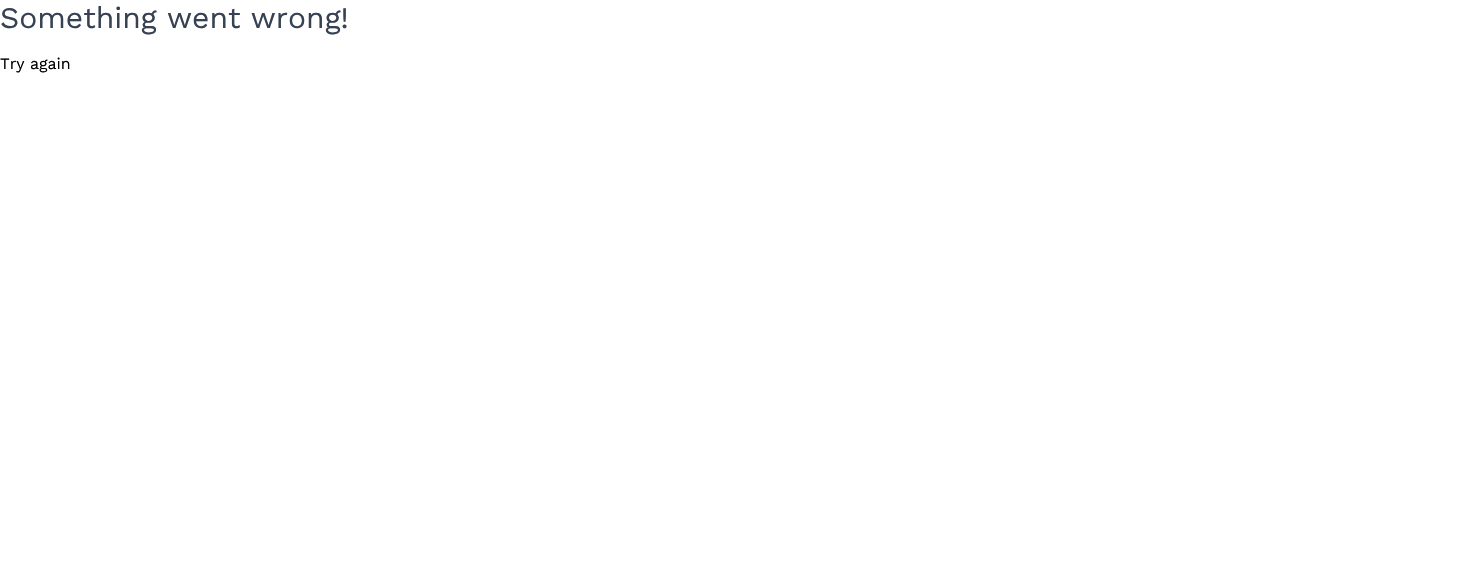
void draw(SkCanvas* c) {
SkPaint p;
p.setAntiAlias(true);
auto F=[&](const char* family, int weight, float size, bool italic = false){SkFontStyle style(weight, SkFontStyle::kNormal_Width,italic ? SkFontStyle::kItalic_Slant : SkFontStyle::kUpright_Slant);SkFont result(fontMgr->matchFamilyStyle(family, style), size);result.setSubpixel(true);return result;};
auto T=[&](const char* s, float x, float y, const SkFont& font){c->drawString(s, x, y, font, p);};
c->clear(0xffffffff);
auto f1 = F("Work Sans",400,30);
p.setColor(0xff364153);
T("Something went wrong!",0,28,f1);
auto f2 = F("Work Sans",400,16);
p.setColor(0xff000000);
T("Try again",0,69,f2);
}
